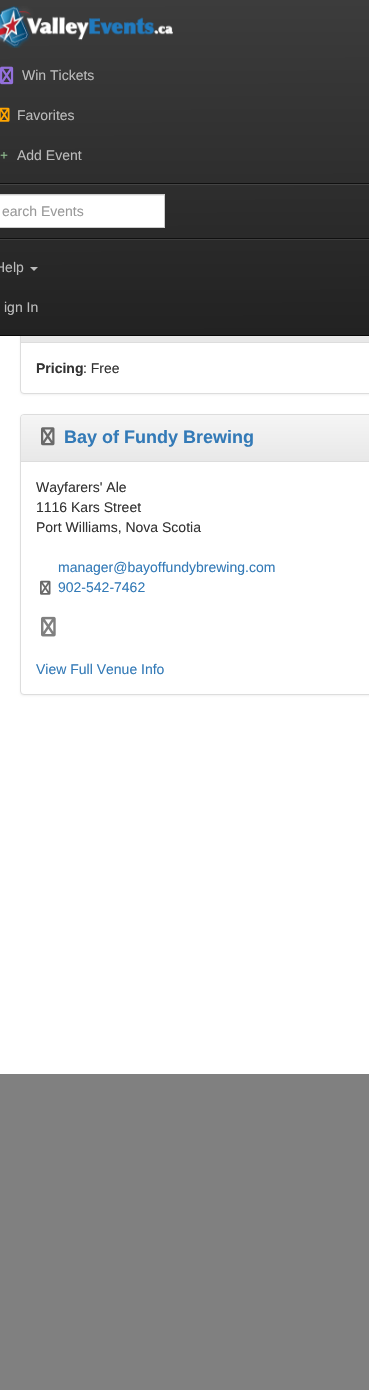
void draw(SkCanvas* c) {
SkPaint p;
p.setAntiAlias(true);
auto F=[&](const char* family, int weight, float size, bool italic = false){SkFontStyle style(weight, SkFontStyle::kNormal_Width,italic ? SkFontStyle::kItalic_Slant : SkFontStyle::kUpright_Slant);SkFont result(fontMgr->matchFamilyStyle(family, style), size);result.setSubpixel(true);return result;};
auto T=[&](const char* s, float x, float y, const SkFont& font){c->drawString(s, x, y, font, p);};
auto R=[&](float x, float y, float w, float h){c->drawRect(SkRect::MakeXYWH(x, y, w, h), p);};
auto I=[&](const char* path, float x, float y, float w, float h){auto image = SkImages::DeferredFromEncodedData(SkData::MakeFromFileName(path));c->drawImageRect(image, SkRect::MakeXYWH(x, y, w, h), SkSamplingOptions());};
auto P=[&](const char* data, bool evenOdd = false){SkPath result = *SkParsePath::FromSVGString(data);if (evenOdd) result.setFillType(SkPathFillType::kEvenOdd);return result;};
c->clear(0xff808080);
p.setColor(0xffffffff);
R(0,336,369,738);
p.setColor(0x0d000000);
p.setMaskFilter(SkMaskFilter::MakeBlur(kNormal_SkBlurStyle, 1));
c->drawRoundRect(SkRect::MakeXYWH(20,296,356,99),4,4,p);
p.setMaskFilter(nullptr);
p.setColor(0xffffffff);
c->drawRoundRect(SkRect::MakeXYWH(20.5,295.5,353,98),3.5,3.5,p);
p.setStroke(true);
p.setStrokeWidth(1);
p.setColor(0xffdddddd);
c->drawRoundRect(SkRect::MakeXYWH(20.5,295.5,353,98),3.5,3.5,p);
p.setStroke(false);
{
const SkColor colors[] = {0xff3c3c3c,0xff222222};
const float stops[] = {0,1};
const SkPoint ends[] = {{184,0}, {185,335}};
p.setShader(SkGradientShader::MakeLinear(ends, colors, stops, 2, SkTileMode::kClamp));
p.setAlpha(255);
}
R(0,0,369,335);
p.setShader(nullptr);
p.setColor(0xff080808);
R(0,335,369,1);
I("1.png",0,6,173,42);
I("2.png",0,66,14,19);
auto f1 = F("Liberation Sans",400,14);
p.setColor(0xffbbbbbb);
T("Win Tickets",22,80,f1);
I("3.png",0,107,10,15);
T("Favorites",17,120,f1);
auto f2 = F("Liberation Serif",700,14);
p.setColor(0xff8fbc8f);
T("+",0,160,f2);
p.setColor(0xffbbbbbb);
T("Add Event",17,160,f1);
p.setColor(0xff3e3e3e);
R(0,239,369,1);
p.setColor(0xff434343);
R(0,184,369,1);
p.setColor(0xff101010);
R(0,183,369,1);
R(0,238,369,1);
p.setColor(0xffffffff);
R(0,196,164,31);
p.setColor(0xffececec);
c->drawPath(P("M-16 196h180v-1h-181c-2 1-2 2-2 4c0-2 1-3 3-3z"),p);
p.setStroke(true);
p.setColor(0xffcccccc);
c->drawRect(SkRect::MakeXYWH(-.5,194.5,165,33),p);
p.setStroke(false);
p.setColor(0xff999999);
T("earch Events",2,216,f1);
p.setColor(0xffbbbbbb);
T("Help",-5,272,f1);
c->drawPath(P("M30 267h8l-4 4z"),p);
T("ign In",4,312,f1);
{
const SkColor colors[] = {0xfff5f5f5,0xffe8e8e8};
const float stops[] = {0,1};
const SkPoint ends[] = {{305,296}, {305,342}};
p.setShader(SkGradientShader::MakeLinear(ends, colors, stops, 2, SkTileMode::kClamp));
p.setAlpha(255);
}
R(21,336,348,6);
p.setShader(nullptr);
p.setColor(0xffdddddd);
R(21,342,348,1);
auto f3 = F("Liberation Sans",700,14);
p.setColor(0xff333333);
T("Pricing",36,373,f3);
T(": Free",83,373,f1);
p.setColor(0x0d000000);
p.setMaskFilter(SkMaskFilter::MakeBlur(kNormal_SkBlurStyle, 1));
c->drawRoundRect(SkRect::MakeXYWH(20,415,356,281),4,4,p);
p.setMaskFilter(nullptr);
p.setColor(0xffffffff);
c->drawRoundRect(SkRect::MakeXYWH(20.5,414.5,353,280),3.5,3.5,p);
p.setStroke(true);
p.setColor(0xffdddddd);
c->drawRoundRect(SkRect::MakeXYWH(20.5,414.5,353,280),3.5,3.5,p);
p.setStroke(false);
{
const SkColor colors[] = {0xfff5f5f5,0xffe8e8e8};
const float stops[] = {0,1};
const SkPoint ends[] = {{305,415}, {305,461}};
p.setShader(SkGradientShader::MakeLinear(ends, colors, stops, 2, SkTileMode::kClamp));
p.setAlpha(255);
}
c->drawPath(P("M24 415h345c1.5 0 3 1.5 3 3v43h-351v-43c0-1.5 1.5-3 3-3z"),p);
p.setShader(nullptr);
p.setColor(0xffdddddd);
R(21,461,348,1);
I("4.png",41,427,14,19);
auto f4 = F("Liberation Sans",700,18);
p.setColor(0xff337ab7);
T("Bay of Fundy Brewing",64,443,f4);
p.setColor(0xff333333);
T("Wayfarers' Ale",36,492,f1);
T("1116 Kars Street",36,512,f1);
T("Port Williams, Nova Scotia",36,532,f1);
p.setColor(0xff337ab7);
T("manager@bayoffundybrewing.com",58,572,f1);
I("5.png",40,580,11,15);
T("902-542-7462",58,592,f1);
I("6.png",41,616,15,21);
T("View Full Venue Info",36,674,f1);
}
